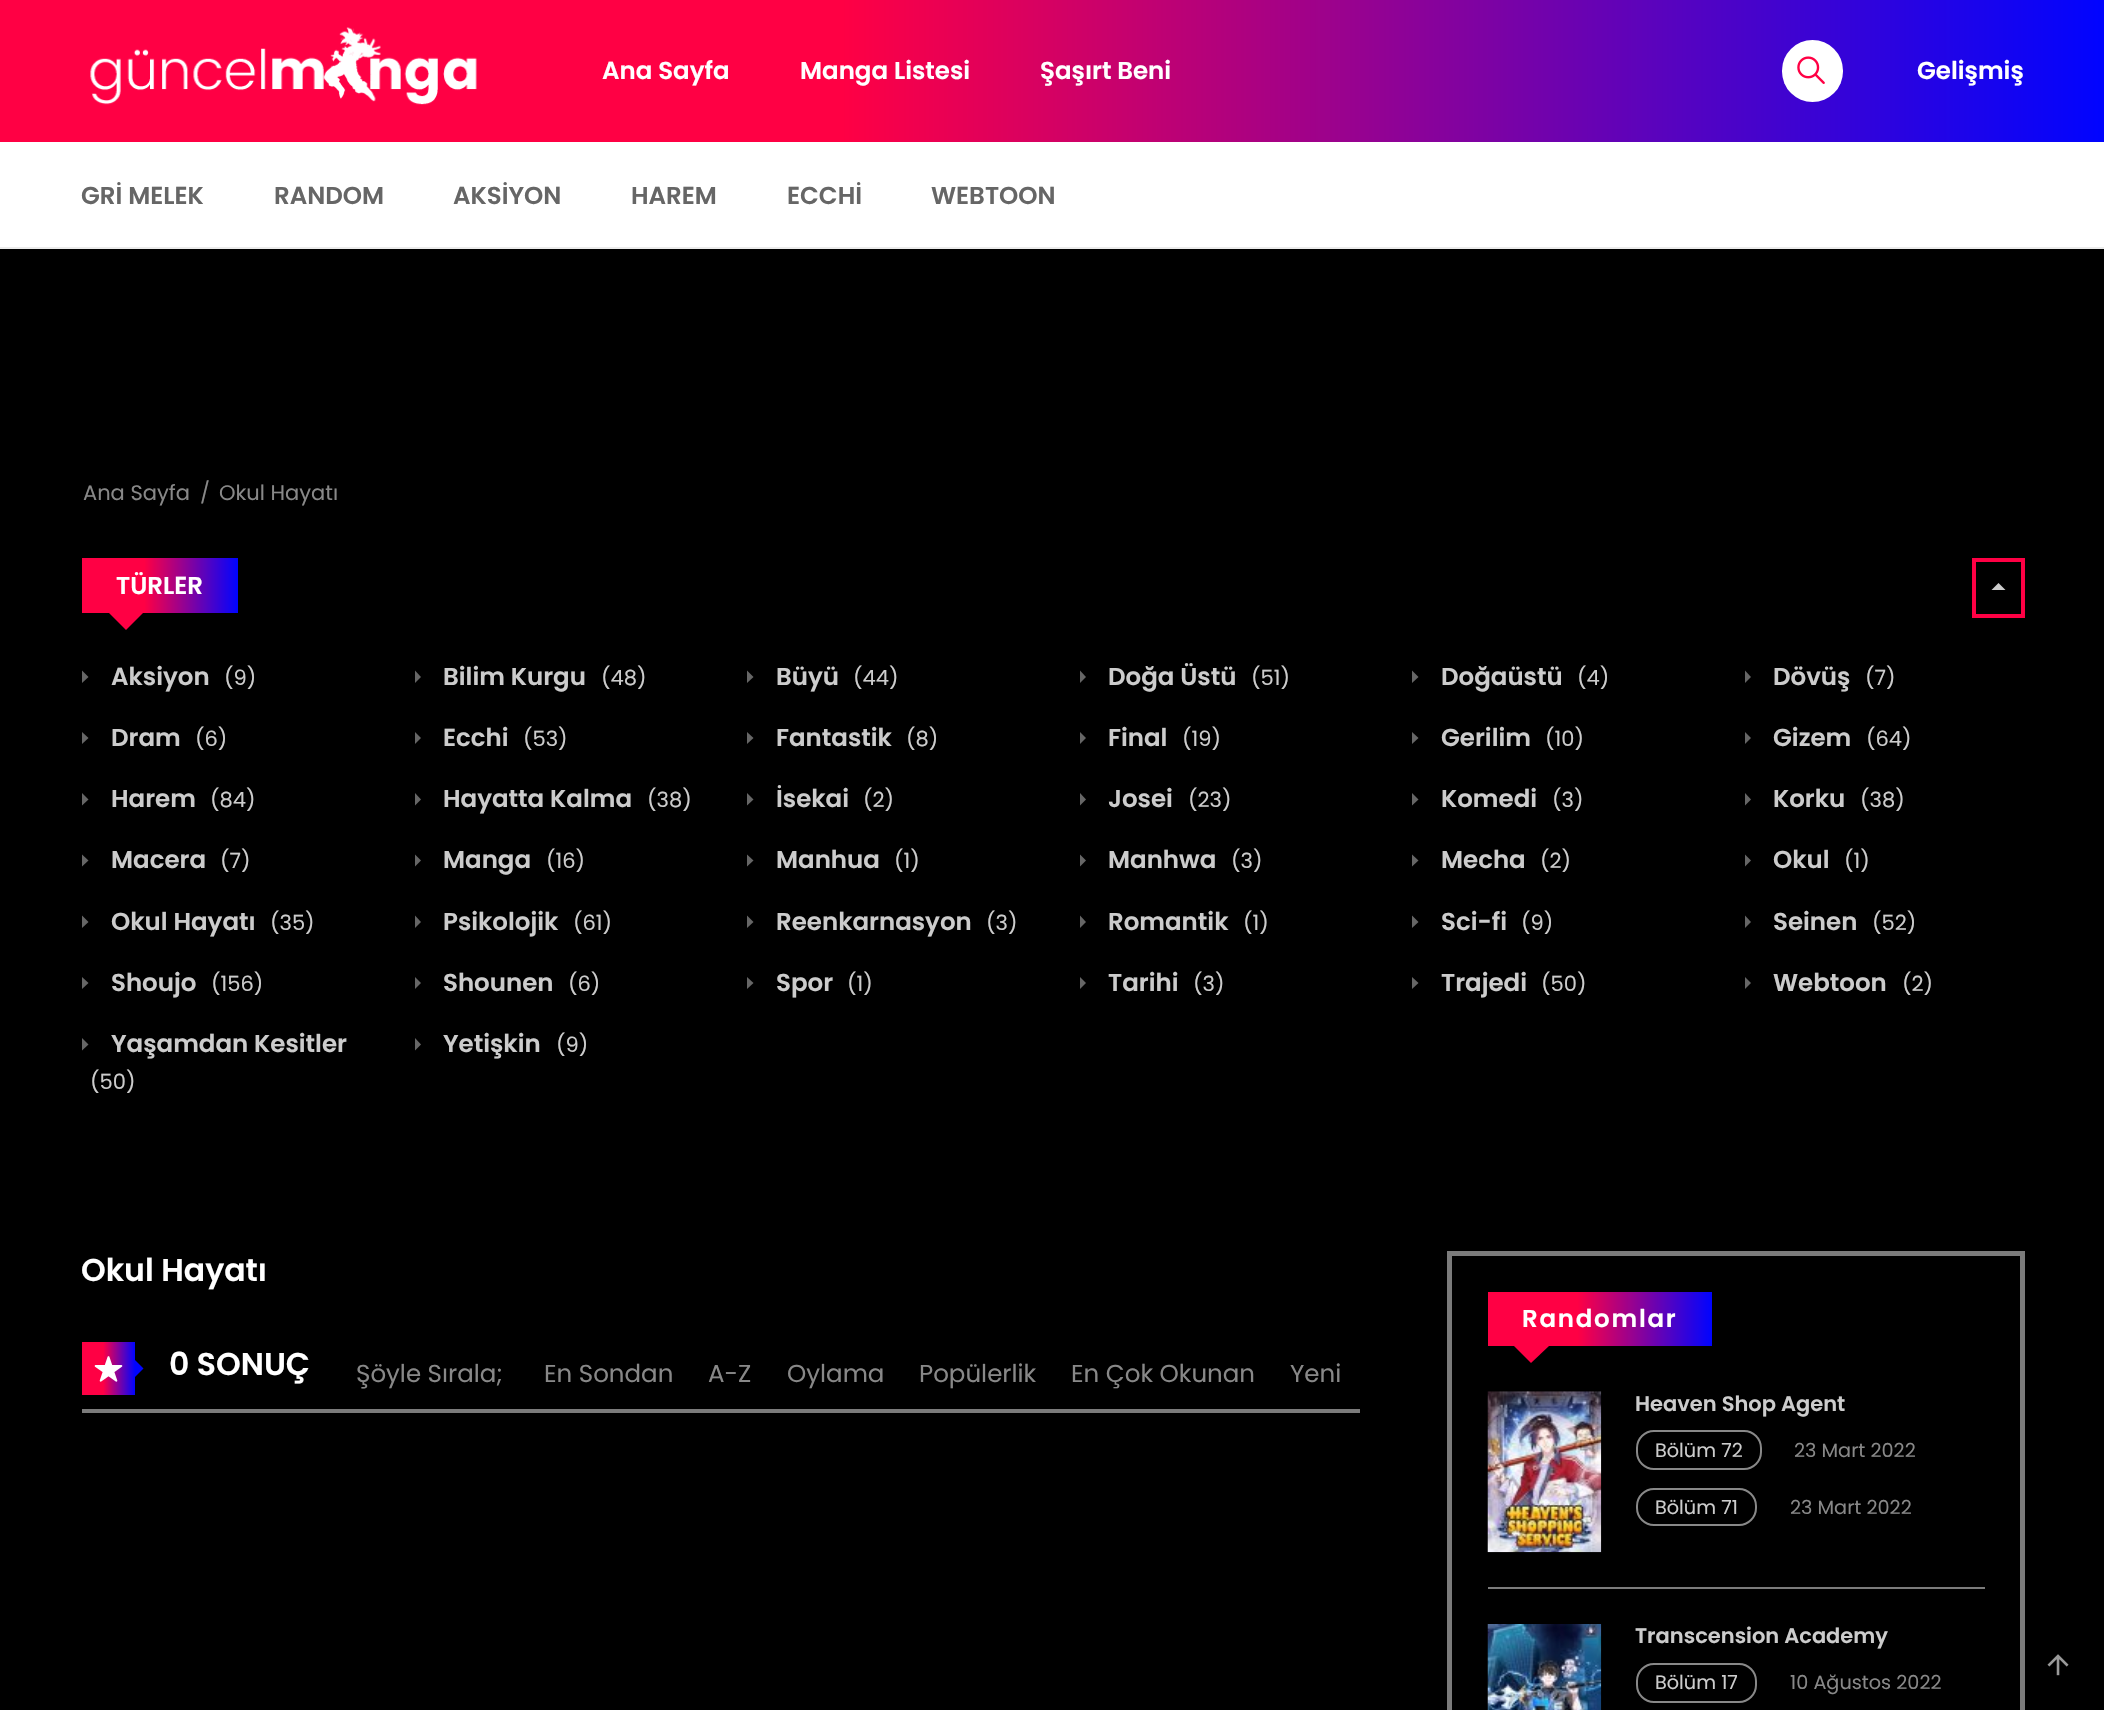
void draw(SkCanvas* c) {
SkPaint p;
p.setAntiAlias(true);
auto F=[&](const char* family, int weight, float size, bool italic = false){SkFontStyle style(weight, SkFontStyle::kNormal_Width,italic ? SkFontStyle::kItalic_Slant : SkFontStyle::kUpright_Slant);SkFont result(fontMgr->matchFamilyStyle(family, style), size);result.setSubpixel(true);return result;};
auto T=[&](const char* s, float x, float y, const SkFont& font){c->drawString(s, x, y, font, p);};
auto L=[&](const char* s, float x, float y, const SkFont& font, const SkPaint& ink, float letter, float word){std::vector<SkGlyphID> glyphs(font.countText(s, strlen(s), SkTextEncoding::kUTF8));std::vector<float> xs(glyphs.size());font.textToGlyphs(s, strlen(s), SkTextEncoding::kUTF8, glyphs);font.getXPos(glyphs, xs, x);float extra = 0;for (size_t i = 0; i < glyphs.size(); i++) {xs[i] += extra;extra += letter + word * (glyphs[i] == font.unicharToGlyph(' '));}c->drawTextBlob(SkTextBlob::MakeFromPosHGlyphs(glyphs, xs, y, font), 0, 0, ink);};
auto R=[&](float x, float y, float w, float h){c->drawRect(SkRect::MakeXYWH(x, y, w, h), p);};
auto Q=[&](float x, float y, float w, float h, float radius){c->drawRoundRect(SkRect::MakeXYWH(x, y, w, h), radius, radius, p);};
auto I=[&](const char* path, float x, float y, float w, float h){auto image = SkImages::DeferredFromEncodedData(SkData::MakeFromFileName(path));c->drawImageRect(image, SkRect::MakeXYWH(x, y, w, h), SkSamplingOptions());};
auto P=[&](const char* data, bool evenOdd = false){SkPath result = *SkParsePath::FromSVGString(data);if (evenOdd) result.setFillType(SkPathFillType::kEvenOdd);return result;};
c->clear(0xff000000);
{
const SkColor colors[] = {0xffff0044,0xff0004ff};
const float stops[] = {.4,1};
const SkPoint ends[] = {{0,71}, {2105,71}};
p.setShader(SkGradientShader::MakeLinear(ends, colors, stops, 2, SkTileMode::kClamp));
p.setAlpha(255);
}
R(0,0,2104,142);
I("1.png",90,27,387,78);
auto f1 = F("Poppins",600,24.5);
p.setShader(nullptr);
p.setColor(0xffffffff);
T("Ana Sayfa",602,79,f1);
T("Manga Listesi",800,79,f1);
T("Şaşırt Beni",1040,79,f1);
Q(1782,40,61,62,30.5);
I("2.png",1797,56,28,28);
T("Gelişmiş",1917,79,f1);
R(0,142,2104,105);
p.setColor(0xffebebeb);
R(0,247,2104,2);
p.setColor(0xff666666);
T("GRİ MELEK",81,204,f1);
T("RANDOM",274,204,f1);
T("AKSİYON",453,204,f1);
T("HAREM",631,204,f1);
T("ECCHİ",787,204,f1);
T("WEBTOON",931,204,f1);
auto f2 = F("Poppins",400,21);
p.setColor(0xff888888);
T("Ana Sayfa",83,500,f2);
T("/",200,500,f2);
T("Okul Hayatı",219,500,f2);
{
const SkColor colors[] = {0xffff0044,0xff0004ff};
const float stops[] = {.4,1};
const SkPoint ends[] = {{82,585}, {238,585}};
p.setShader(SkGradientShader::MakeLinear(ends, colors, stops, 2, SkTileMode::kClamp));
p.setAlpha(255);
}
R(82,558,156,55);
p.setShader(nullptr);
p.setColor(0xffffffff);
T("TÜRLER",116,594,f1);
p.setColor(0xffff0044);
c->drawPath(P("M108.5 612.5h35l-17.5 17.5z"),p);
p.setStroke(true);
p.setStrokeWidth(4);
c->drawRect(SkRect::MakeXYWH(1974,560,49,56),p);
p.setStroke(false);
p.setColor(0xffcccccc);
c->drawPath(P("M1991.5 590l7-7l7 7z"),p);
p.setColor(0xff666666);
c->drawPath(P("M82 670.5l6.5 6.5l-6.5 6z"),p);
p.setColor(0xffcccccc);
T("Aksiyon",111,685,f1);
T("(9)",224,685,f2);
p.setColor(0xff666666);
c->drawPath(P("M415 670.5l6 6.5l-6 6z"),p);
p.setColor(0xffcccccc);
T("Bilim Kurgu",443,685,f1);
T("(48)",601,685,f2);
p.setColor(0xff666666);
c->drawPath(P("M747 670.5l6.5 6.5l-6.5 6z"),p);
p.setColor(0xffcccccc);
T("Büyü",776,685,f1);
T("(44)",853,685,f2);
p.setColor(0xff666666);
c->drawPath(P("M1080 670.5l6 6.5l-6 6z"),p);
p.setColor(0xffcccccc);
T("Doğa Üstü",1108,685,f1);
T("(51)",1251,685,f2);
p.setColor(0xff666666);
c->drawPath(P("M1412 670.5l6.5 6.5l-6.5 6z"),p);
p.setColor(0xffcccccc);
T("Doğaüstü",1441,685,f1);
T("(4)",1577,685,f2);
p.setColor(0xff666666);
c->drawPath(P("M1745 670.5l6 6.5l-6 6z"),p);
p.setColor(0xffcccccc);
T("Dövüş",1773,685,f1);
T("(7)",1865,685,f2);
p.setColor(0xff666666);
c->drawPath(P("M82 732l6.5 6l-6.5 6z"),p);
p.setColor(0xffcccccc);
T("Dram",111,746,f1);
T("(6)",195,746,f2);
p.setColor(0xff666666);
c->drawPath(P("M415 732l6 6l-6 6z"),p);
p.setColor(0xffcccccc);
T("Ecchi",443,746,f1);
T("(53)",523,746,f2);
p.setColor(0xff666666);
c->drawPath(P("M747 732l6.5 6l-6.5 6z"),p);
p.setColor(0xffcccccc);
T("Fantastik",776,746,f1);
T("(8)",906,746,f2);
p.setColor(0xff666666);
c->drawPath(P("M1080 732l6 6l-6 6z"),p);
p.setColor(0xffcccccc);
T("Final",1108,746,f1);
T("(19)",1182,746,f2);
p.setColor(0xff666666);
c->drawPath(P("M1412 732l6.5 6l-6.5 6z"),p);
p.setColor(0xffcccccc);
T("Gerilim",1441,746,f1);
T("(10)",1545,746,f2);
p.setColor(0xff666666);
c->drawPath(P("M1745 732l6 6l-6 6z"),p);
p.setColor(0xffcccccc);
T("Gizem",1773,746,f1);
T("(64)",1866,746,f2);
p.setColor(0xff666666);
c->drawPath(P("M82 793l6.5 6.5l-6.5 6z"),p);
p.setColor(0xffcccccc);
T("Harem",111,807,f1);
T("(84)",210,807,f2);
p.setColor(0xff666666);
c->drawPath(P("M415 793l6 6.5l-6 6z"),p);
p.setColor(0xffcccccc);
T("Hayatta Kalma",443,807,f1);
T("(38)",647,807,f2);
p.setColor(0xff666666);
c->drawPath(P("M747 793l6.5 6.5l-6.5 6z"),p);
p.setColor(0xffcccccc);
T("İsekai",776,807,f1);
T("(2)",863,807,f2);
p.setColor(0xff666666);
c->drawPath(P("M1080 793l6 6.5l-6 6z"),p);
p.setColor(0xffcccccc);
T("Josei",1108,807,f1);
T("(23)",1188,807,f2);
p.setColor(0xff666666);
c->drawPath(P("M1412 793l6.5 6.5l-6.5 6z"),p);
p.setColor(0xffcccccc);
T("Komedi",1441,807,f1);
T("(3)",1552,807,f2);
p.setColor(0xff666666);
c->drawPath(P("M1745 793l6 6.5l-6 6z"),p);
p.setColor(0xffcccccc);
T("Korku",1773,807,f1);
T("(38)",1860,807,f2);
p.setColor(0xff666666);
c->drawPath(P("M82 854.5l6.5 6l-6.5 6z"),p);
p.setColor(0xffcccccc);
T("Macera",111,868,f1);
T("(7)",220,868,f2);
p.setColor(0xff666666);
c->drawPath(P("M415 854.5l6 6l-6 6z"),p);
p.setColor(0xffcccccc);
T("Manga",443,868,f1);
T("(16)",546,868,f2);
p.setColor(0xff666666);
c->drawPath(P("M747 854.5l6.5 6l-6.5 6z"),p);
p.setColor(0xffcccccc);
T("Manhua",776,868,f1);
T("(1)",894,868,f2);
p.setColor(0xff666666);
c->drawPath(P("M1080 854.5l6 6l-6 6z"),p);
p.setColor(0xffcccccc);
T("Manhwa",1108,868,f1);
T("(3)",1231,868,f2);
p.setColor(0xff666666);
c->drawPath(P("M1412 854.5l6.5 6l-6.5 6z"),p);
p.setColor(0xffcccccc);
T("Mecha",1441,868,f1);
T("(2)",1540,868,f2);
p.setColor(0xff666666);
c->drawPath(P("M1745 854.5l6 6l-6 6z"),p);
p.setColor(0xffcccccc);
T("Okul",1773,868,f1);
T("(1)",1844,868,f2);
p.setColor(0xff666666);
c->drawPath(P("M82 915.5l6.5 6.5l-6.5 6z"),p);
p.setColor(0xffcccccc);
T("Okul Hayatı",111,930,f1);
T("(35)",270,930,f2);
p.setColor(0xff666666);
c->drawPath(P("M415 915.5l6 6.5l-6 6z"),p);
p.setColor(0xffcccccc);
T("Psikolojik",443,930,f1);
T("(61)",573,930,f2);
p.setColor(0xff666666);
c->drawPath(P("M747 915.5l6.5 6.5l-6.5 6z"),p);
p.setColor(0xffcccccc);
T("Reenkarnasyon",776,930,f1);
T("(3)",986,930,f2);
p.setColor(0xff666666);
c->drawPath(P("M1080 915.5l6 6.5l-6 6z"),p);
p.setColor(0xffcccccc);
T("Romantik",1108,930,f1);
T("(1)",1243,930,f2);
p.setColor(0xff666666);
c->drawPath(P("M1412 915.5l6.5 6.5l-6.5 6z"),p);
p.setColor(0xffcccccc);
T("Sci-fi",1441,930,f1);
T("(9)",1521,930,f2);
p.setColor(0xff666666);
c->drawPath(P("M1745 915.5l6 6.5l-6 6z"),p);
p.setColor(0xffcccccc);
T("Seinen",1773,930,f1);
T("(52)",1872,930,f2);
p.setColor(0xff666666);
c->drawPath(P("M82 977l6.5 6l-6.5 6z"),p);
p.setColor(0xffcccccc);
T("Shoujo",111,991,f1);
T("(156)",211,991,f2);
p.setColor(0xff666666);
c->drawPath(P("M415 977l6 6l-6 6z"),p);
p.setColor(0xffcccccc);
T("Shounen",443,991,f1);
T("(6)",568,991,f2);
p.setColor(0xff666666);
c->drawPath(P("M747 977l6.5 6l-6.5 6z"),p);
p.setColor(0xffcccccc);
T("Spor",776,991,f1);
T("(1)",847,991,f2);
p.setColor(0xff666666);
c->drawPath(P("M1080 977l6 6l-6 6z"),p);
p.setColor(0xffcccccc);
T("Tarihi",1108,991,f1);
T("(3)",1193,991,f2);
p.setColor(0xff666666);
c->drawPath(P("M1412 977l6.5 6l-6.5 6z"),p);
p.setColor(0xffcccccc);
T("Trajedi",1441,991,f1);
T("(50)",1541,991,f2);
p.setColor(0xff666666);
c->drawPath(P("M1745 977l6 6l-6 6z"),p);
p.setColor(0xffcccccc);
T("Webtoon",1773,991,f1);
T("(2)",1902,991,f2);
p.setColor(0xff666666);
c->drawPath(P("M82 1038l6.5 6.5l-6.5 6z"),p);
p.setColor(0xffcccccc);
T("Yaşamdan Kesitler",111,1052,f1);
T("(50)",90,1089,f2);
p.setColor(0xff666666);
c->drawPath(P("M415 1038l6 6.5l-6 6z"),p);
p.setColor(0xffcccccc);
T("Yetişkin",443,1052,f1);
T("(9)",556,1052,f2);
auto f3 = F("Poppins",600,31.5);
p.setColor(0xffffffff);
T("Okul Hayatı",81,1281,f3);
p.setColor(0xff7b7b7b);
R(82,1409,1278,4);
{
const SkColor colors[] = {0xffff0044,0xff0004ff};
const float stops[] = {.4,1};
const SkPoint ends[] = {{82,1369}, {135,1369}};
p.setShader(SkGradientShader::MakeLinear(ends, colors, stops, 2, SkTileMode::kClamp));
p.setAlpha(255);
}
R(82,1342,53,53);
I("3.png",94,1356,29,26);
p.setShader(nullptr);
p.setColor(0xff0004ff);
c->drawPath(P("M135 1377v-17l8.5 8.5z"),p);
p.setColor(0xffffffff);
T("0 SONUÇ",169,1375,f3);
auto f4 = F("Poppins",400,24.5);
p.setColor(0xff888888);
T("Şöyle Sırala;",356,1382,f4);
T("En Sondan",544,1382,f4);
T("A-Z",708,1382,f4);
T("Oylama",787,1382,f4);
T("Popülerlik",919,1382,f4);
T("En Çok Okunan",1071,1382,f4);
T("Yeni",1290,1382,f4);
p.setStroke(true);
p.setStrokeWidth(5);
p.setColor(0xff7b7b7b);
c->drawRect(SkRect::MakeXYWH(1449.5,1253.5,573,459),p);
p.setStroke(false);
{
const SkColor colors[] = {0xffff0044,0xff0004ff};
const float stops[] = {.4,1};
const SkPoint ends[] = {{1488,1319}, {1712,1319}};
p.setShader(SkGradientShader::MakeLinear(ends, colors, stops, 2, SkTileMode::kClamp));
p.setAlpha(255);
}
R(1488,1292,224,54);
p.setShader(nullptr);
p.setColor(0xffffffff);
L("Randomlar",1522,1327,f1,p,1.75,0);
p.setColor(0xffff0044);
c->drawPath(P("M1514 1346h35l-18 17z"),p);
p.setColor(0xff7b7b7b);
R(1488,1587,497,2);
I("4.png",1487,1391,115,162);
auto f5 = F("Poppins",600,21);
p.setColor(0xffcccccc);
T("Heaven Shop Agent",1635,1411,f5);
p.setStroke(true);
p.setStrokeWidth(2);
p.setColor(0xff888888);
c->drawRoundRect(SkRect::MakeXYWH(1637,1431,124,38),17,17,p);
auto f6 = F("Poppins",400,19.25);
p.setStroke(false);
p.setColor(0xffcccccc);
T("Bölüm 72",1655,1457,f6);
p.setColor(0xff888888);
T("23 Mart 2022",1794,1457,f6);
p.setStroke(true);
c->drawRoundRect(SkRect::MakeXYWH(1637,1489,119,36),17,17,p);
p.setStroke(false);
p.setColor(0xffcccccc);
T("Bölüm 71",1655,1514,f6);
p.setColor(0xff888888);
T("23 Mart 2022",1790,1514,f6);
I("5.png",1487,1624,115,86);
p.setColor(0xffcccccc);
T("Transcension Academy",1635,1643,f5);
p.setStroke(true);
p.setColor(0xff888888);
c->drawRoundRect(SkRect::MakeXYWH(1637,1664,119,38),17,17,p);
p.setStroke(false);
p.setColor(0xffcccccc);
T("Bölüm 17",1655,1689,f6);
p.setColor(0xff888888);
T("10 Ağustos 2022",1790,1689,f6);
I("6.png",2047,1654,22,22);
}
